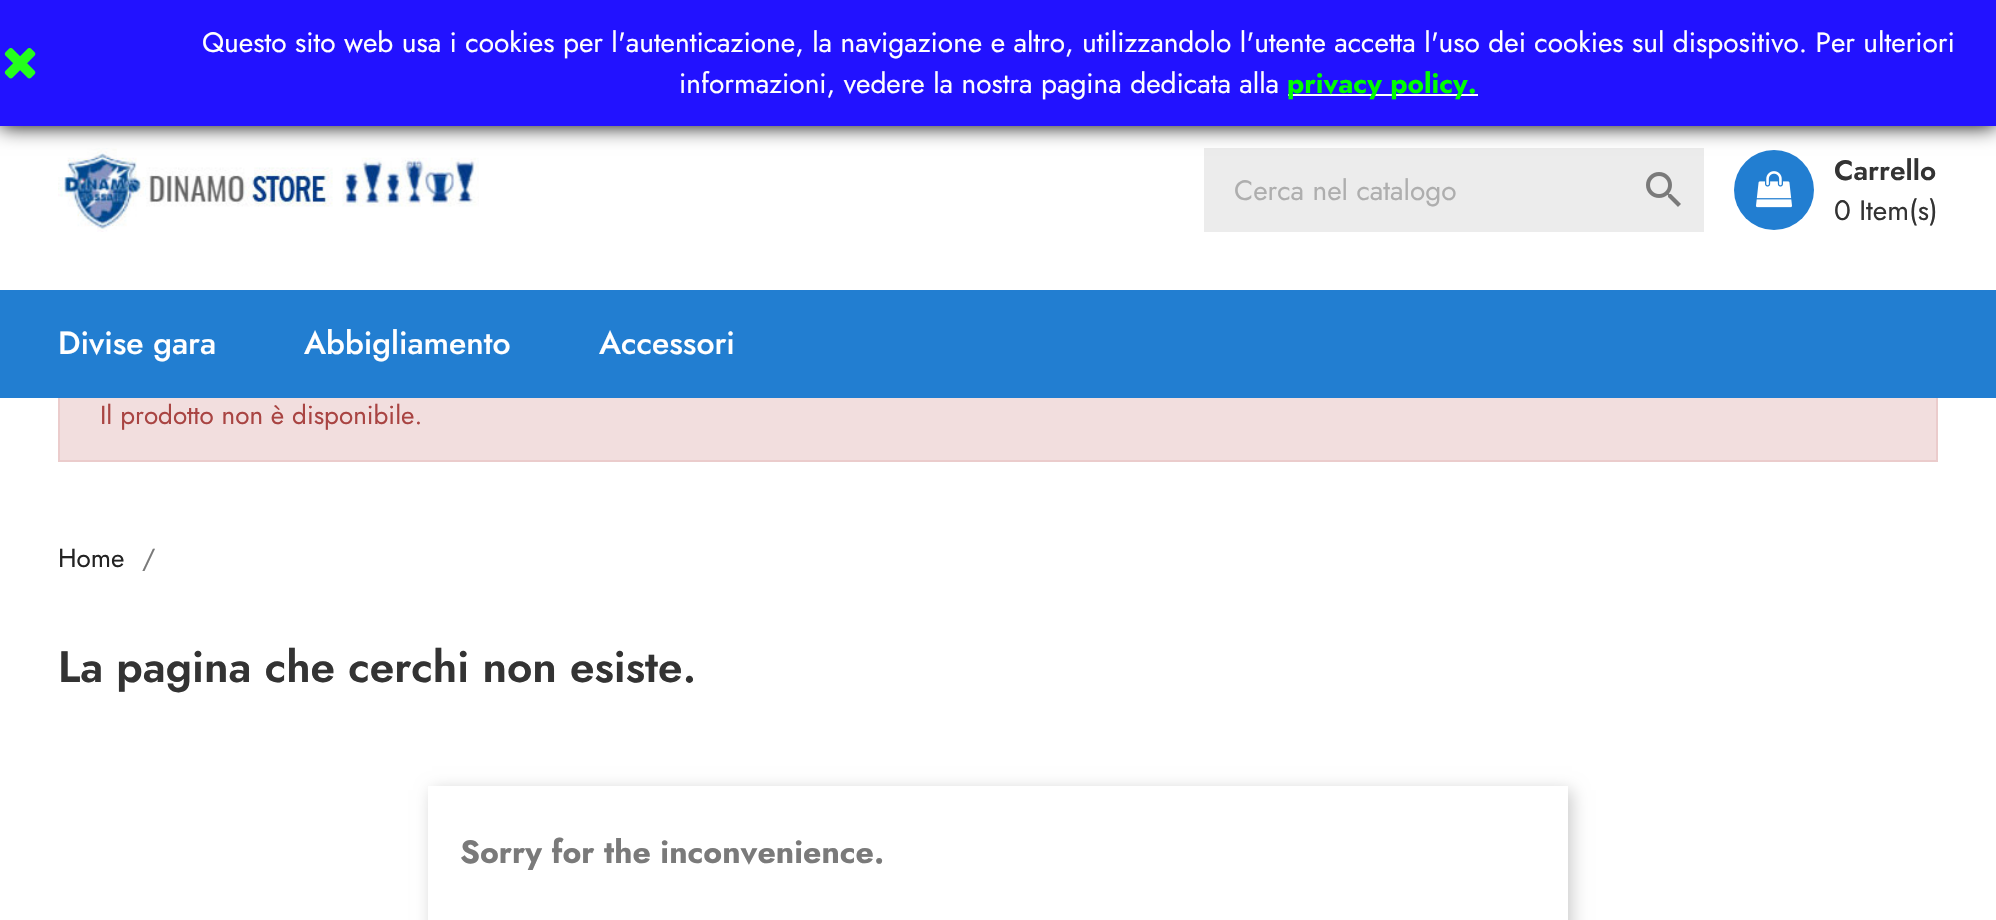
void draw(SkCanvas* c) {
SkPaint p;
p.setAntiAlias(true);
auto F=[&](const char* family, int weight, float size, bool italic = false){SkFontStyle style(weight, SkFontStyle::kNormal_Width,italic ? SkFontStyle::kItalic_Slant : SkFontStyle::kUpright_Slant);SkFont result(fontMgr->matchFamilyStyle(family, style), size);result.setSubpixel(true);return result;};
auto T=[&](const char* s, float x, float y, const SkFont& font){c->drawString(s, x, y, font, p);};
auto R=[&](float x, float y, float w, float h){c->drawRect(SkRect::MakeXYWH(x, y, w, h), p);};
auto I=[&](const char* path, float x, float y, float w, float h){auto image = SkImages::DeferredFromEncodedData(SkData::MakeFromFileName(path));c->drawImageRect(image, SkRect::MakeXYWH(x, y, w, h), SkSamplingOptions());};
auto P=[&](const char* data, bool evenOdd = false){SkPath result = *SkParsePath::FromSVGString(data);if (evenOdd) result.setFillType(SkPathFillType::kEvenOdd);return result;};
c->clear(0xffffffff);
p.setColor(0xfff2dede);
R(60,398,1876,62);
p.setStroke(true);
p.setStrokeWidth(2);
p.setColor(0xffebcccc);
c->drawRect(SkRect::MakeXYWH(59,1,1878,460),p);
p.setStroke(false);
p.setColor(0xffffffff);
R(58,126,1880,164);
I("2.png",58,148,421,84);
p.setColor(0xffececec);
R(1204,148,500,84);
p.setColor(0xff227ed1);
c->drawCircle(1774,190,40,p);
p.setColor(0xff000000);
p.setMaskFilter(SkMaskFilter::MakeBlur(kNormal_SkBlurStyle, 10));
c->drawRect(SkRect::MakeXYWH(0,0,1996,126),p);
p.setMaskFilter(nullptr);
p.setColor(0xff2212ff);
R(0,0,1996,126);
I("1.png",4,48,32,31);
auto f1 = F("Jost",400,28);
p.setColor(0xffffffff);
T("Questo sito web usa i cookies per l'autenticazione, la navigazione e altro, utilizzandolo l'utente accetta l'uso dei cookies sul dispositivo. Per ulteriori",202,52,f1);
T("informazioni, vedere la nostra pagina dedicata alla",679,93,f1);
R(1288,94,190,2);
auto f2 = F("Jost",700,28);
p.setColor(0xff00ff00);
T("privacy policy.",1287,93,f2);
p.setColor(0xffaeaeae);
T("Cerca nel catalogo",1234,200,f1);
I("3.png",1646,172,35,35);
I("4.png",1756,171,36,37);
auto f3 = F("Jost",600,28);
p.setColor(0xff333333);
T("Carrello",1834,180,f3);
T("0 Item(s)",1834,220,f1);
p.setColor(0xff227ed1);
R(0,290,1996,108);
auto f4 = F("Jost",500,32);
p.setColor(0xffffffff);
T("Divise gara",58,354,f4);
T("Abbigliamento",304,354,f4);
T("Accessori",599,354,f4);
auto f5 = F("Jost",400,26);
p.setColor(0xffa94442);
T("Il prodotto non è disponibile.",100,424,f5);
p.setColor(0xff232323);
T("Home",58,567,f5);
p.setColor(0xff7a7a7a);
T("/",142,567,f5);
auto f6 = F("Jost",600,44);
p.setColor(0xff333333);
T("La pagina che cerchi non esiste.",58,682,f6);
c->save();
c->clipPath(P("M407 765h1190v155h-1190zm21 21h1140v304h-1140z",true),true);
p.setColor(0x33000000);
p.setMaskFilter(SkMaskFilter::MakeBlur(kNormal_SkBlurStyle, 8));
c->drawRect(SkRect::MakeXYWH(432,790,1140,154),p);
p.setMaskFilter(nullptr);
c->restore();
auto f7 = F("Jost",700,32);
p.setColor(0xff7a7a7a);
T("Sorry for the inconvenience.",460,863,f7);
}
